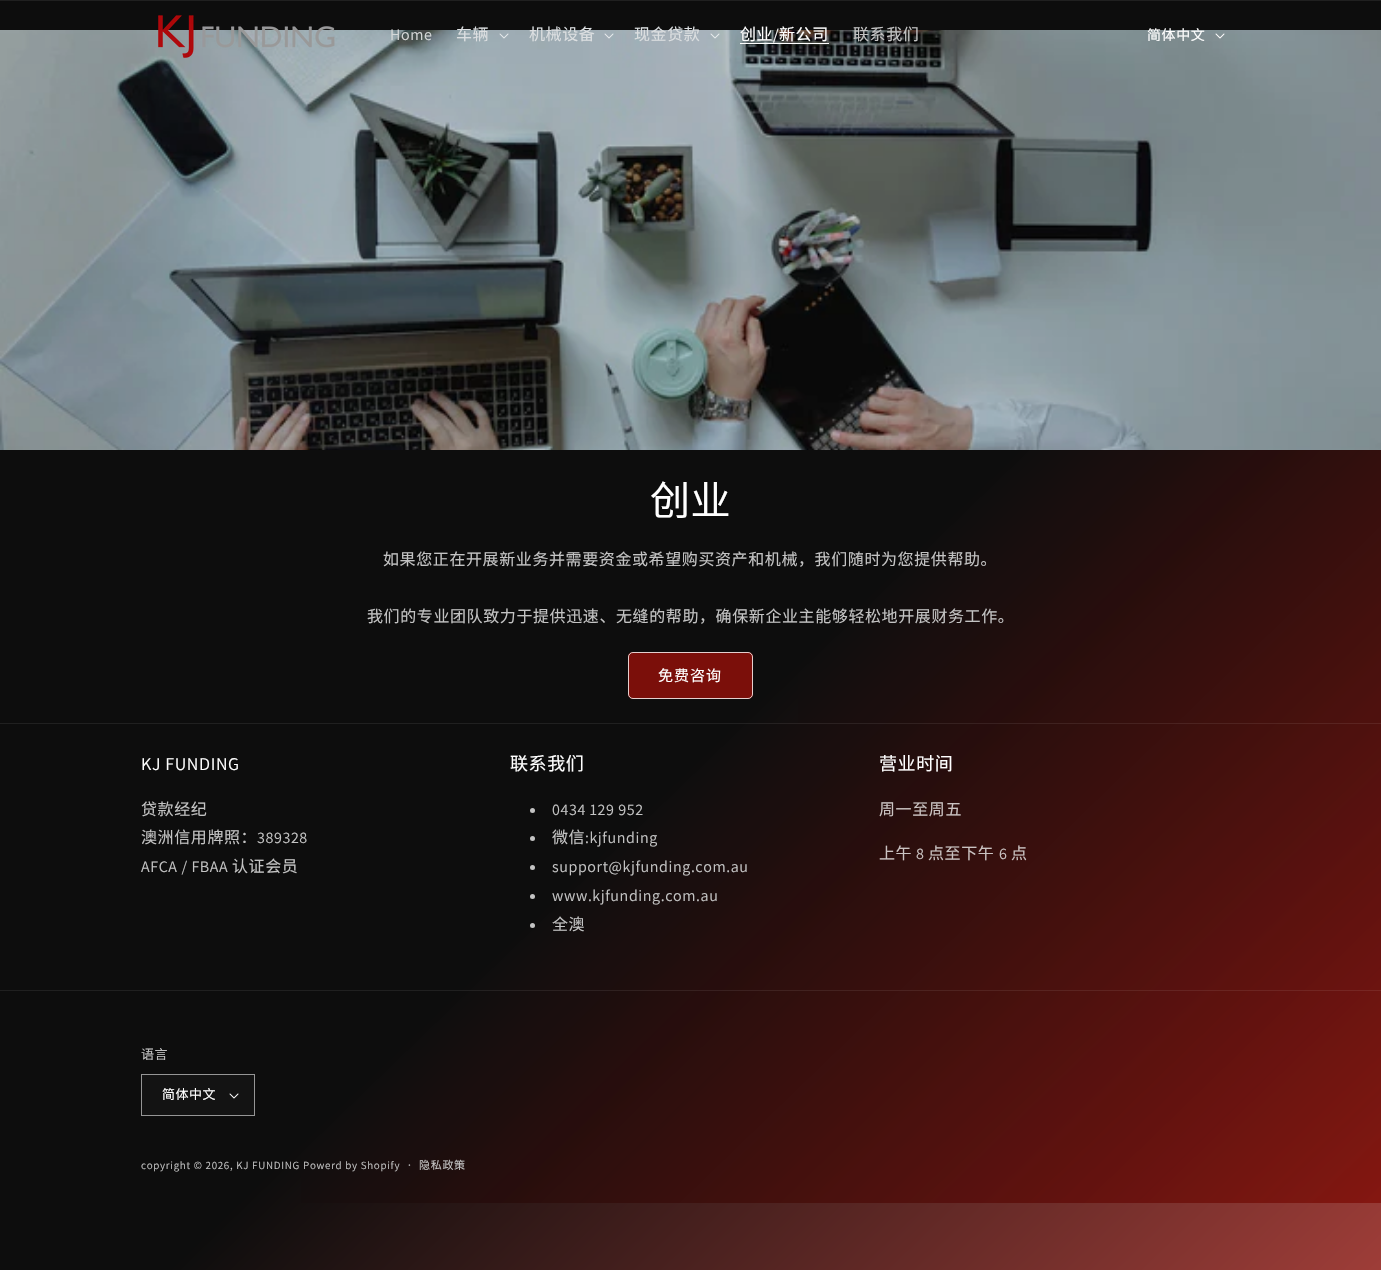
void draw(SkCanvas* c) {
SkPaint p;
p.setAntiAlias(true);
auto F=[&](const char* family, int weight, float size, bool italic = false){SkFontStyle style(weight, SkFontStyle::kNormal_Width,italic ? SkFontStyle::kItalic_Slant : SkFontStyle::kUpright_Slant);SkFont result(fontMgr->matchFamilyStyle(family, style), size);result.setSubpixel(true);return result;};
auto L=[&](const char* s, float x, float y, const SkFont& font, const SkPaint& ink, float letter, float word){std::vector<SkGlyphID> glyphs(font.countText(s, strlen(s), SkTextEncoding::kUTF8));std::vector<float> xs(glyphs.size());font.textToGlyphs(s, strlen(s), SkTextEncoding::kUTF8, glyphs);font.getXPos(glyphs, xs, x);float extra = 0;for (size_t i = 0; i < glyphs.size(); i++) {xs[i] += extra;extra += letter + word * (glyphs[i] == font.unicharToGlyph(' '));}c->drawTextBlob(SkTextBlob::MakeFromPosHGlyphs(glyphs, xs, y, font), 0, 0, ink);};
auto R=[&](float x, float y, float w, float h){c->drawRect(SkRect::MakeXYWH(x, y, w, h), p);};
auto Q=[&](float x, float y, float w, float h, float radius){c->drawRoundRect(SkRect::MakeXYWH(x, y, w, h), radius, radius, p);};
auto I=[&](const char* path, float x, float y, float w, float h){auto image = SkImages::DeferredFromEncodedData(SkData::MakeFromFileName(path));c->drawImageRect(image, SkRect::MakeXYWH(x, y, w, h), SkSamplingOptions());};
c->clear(0xffffffff);
{
const SkColor colors[] = {0xff0d0d0d,0xff9e3d38};
const float stops[] = {.55,1};
const SkPoint ends[] = {{40,-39}, {1341,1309}};
p.setShader(SkGradientShader::MakeLinear(ends, colors, stops, 2, SkTileMode::kClamp));
p.setAlpha(255);
}
R(0,1,1381,1269);
p.setShader(nullptr);
p.setColor(0xff202020);
R(0,0,1381,1);
I("6.png",0,30,1381,420);
I("1.png",158,15,177,43);
auto f1 = F("Assistant",400,16);
p.setColor(0xffd5d8d8);
L("Home",390,40,f1,p,.6,0);
auto f2 = F("Noto Sans CJK SC",400,16);
p.setColor(0xffdcdfe1);
L("车辆",456,40,f2,p,.6,0);
I("2.png",499,33,10,6);
L("机械设备",529,40,f2,p,.6,0);
I("3.png",604,33,10,6);
L("现金贷款",634,40,f2,p,.6,0);
I("4.png",710,33,10,6);
p.setColor(0xffffffff);
L("创业",740,40,f2,p,.6,0);
L("/",773,40,f1,p,.6,0);
R(740,43,89,1);
L("新公司",779,40,f2,p,.6,0);
p.setColor(0xffc3c3c3);
L("联系我们",853,40,f2,p,.6,0);
auto f3 = F("Noto Sans CJK SC",400,14);
p.setColor(0xffffffff);
L("简体中文",1147,40,f3,p,.6,0);
I("5.png",1215,33,10,6);
{
const SkColor colors[] = {0xff0d0d0d,0xcf870f09};
const float stops[] = {.55,1};
const SkPoint ends[] = {{40,-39}, {1341,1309}};
p.setShader(SkGradientShader::MakeLinear(ends, colors, stops, 2, SkTileMode::kClamp));
p.setAlpha(255);
}
R(798,450,583,273);
auto f4 = F("Noto Sans CJK SC",400,40);
p.setShader(nullptr);
p.setColor(0xffffffff);
L("创业",650,515,f4,p,.6,0);
p.setColor(0xffc3c3c3);
L("如果您正在开展新业务并需要资金或希望购买资产和机械，我们随时为您提供帮助。",383,565,f2,p,.6,0);
L("我们的专业团队致力于提供迅速、无缝的帮助，确保新企业主能够轻松地开展财务工作。",367,622,f2,p,.6,0);
p.setColor(0xff7b0f0a);
Q(628,652,125,47,5);
p.setStroke(true);
p.setStrokeWidth(1);
c->drawRoundRect(SkRect::MakeXYWH(628.5,652.5,124,46),4.5,4.5,p);
p.setColor(0xccffffff);
c->drawRoundRect(SkRect::MakeXYWH(628.5,652.5,124,46),4.5,4.5,p);
auto f5 = F("Noto Sans CJK SC",400,15);
p.setStroke(false);
p.setColor(0xffffffff);
L("免费咨询",658,681,f5,p,1,0);
{
const SkColor colors[] = {0xff0d0d0d,0xcf870f09};
const float stops[] = {.55,1};
const SkPoint ends[] = {{40,-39}, {1341,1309}};
p.setShader(SkGradientShader::MakeLinear(ends, colors, stops, 2, SkTileMode::kClamp));
p.setAlpha(255);
}
R(301,723,1080,480);
p.setShader(nullptr);
p.setColor(0x14ffffff);
R(0,723,1381,1);
auto f6 = F("Assistant",400,18);
p.setColor(0xffffffff);
L("KJ FUNDING",141,770,f6,p,.6,0);
p.setColor(0xffc3c3c3);
L("贷款经纪",141,815,f2,p,.6,0);
L("澳洲信用牌照：",141,843,f2,p,.6,0);
L("389328",257,843,f1,p,.6,0);
L("AFCA / FBAA",141,872,f1,p,.6,0);
L("认证会员",232,872,f2,p,.6,0);
auto f7 = F("Noto Sans CJK SC",400,18);
p.setColor(0xffffffff);
L("联系我们",510,770,f7,p,.6,0);
p.setColor(0xffc3c3c3);
c->drawCircle(532.5,810.5,2.5,p);
L("0434 129 952",552,815,f1,p,.6,0);
c->drawCircle(532.5,838.5,2.5,p);
L("微信",552,843,f2,p,.6,0);
L(":kjfunding",585,843,f1,p,.6,0);
c->drawCircle(532.5,867.5,2.5,p);
L("support@kjfunding.com.au",552,872,f1,p,.6,0);
c->drawCircle(532.5,896.5,2.5,p);
L("www.kjfunding.com.au",552,901,f1,p,.6,0);
c->drawCircle(532.5,925.5,2.5,p);
L("全澳",552,930,f2,p,.6,0);
p.setColor(0xffffffff);
L("营业时间",879,770,f7,p,.6,0);
p.setColor(0xffcac3c2);
L("周一至周五",879,815,f2,p,.6,0);
L("上午",879,859,f2,p,.6,0);
L("8",916,859,f1,p,.6,0);
L("点至下午",928,859,f2,p,.6,0);
L("6",999,859,f1,p,.6,0);
L("点",1011,859,f2,p,.6,0);
p.setColor(0x14ffffff);
R(0,990,1381,1);
auto f8 = F("Noto Sans CJK SC",400,13);
p.setColor(0xffc3c3c3);
L("语言",141,1059,f8,p,.5,0);
p.setColor(0xff131313);
R(142,1075,112,40);
I("7.png",229,1093,10,6);
p.setStroke(true);
p.setColor(0xff959595);
c->drawRect(SkRect::MakeXYWH(141.5,1074.5,113,41),p);
p.setStroke(false);
p.setColor(0xffffffff);
L("简体中文",162,1099,f8,p,.5,0);
auto f9 = F("Assistant",400,11);
p.setColor(0xffc3c3c3);
L("copyright © 2026, KJ FUNDING",141,1169,f9,p,.7,0);
L("Powerd by Shopify",303,1169,f9,p,.7,0);
auto f10 = F("Assistant",400,12);
L("·",408,1169,f10,p,.7,0);
auto f11 = F("Noto Sans CJK SC",400,11);
L("隐私政策",419,1169,f11,p,.7,0);
}
